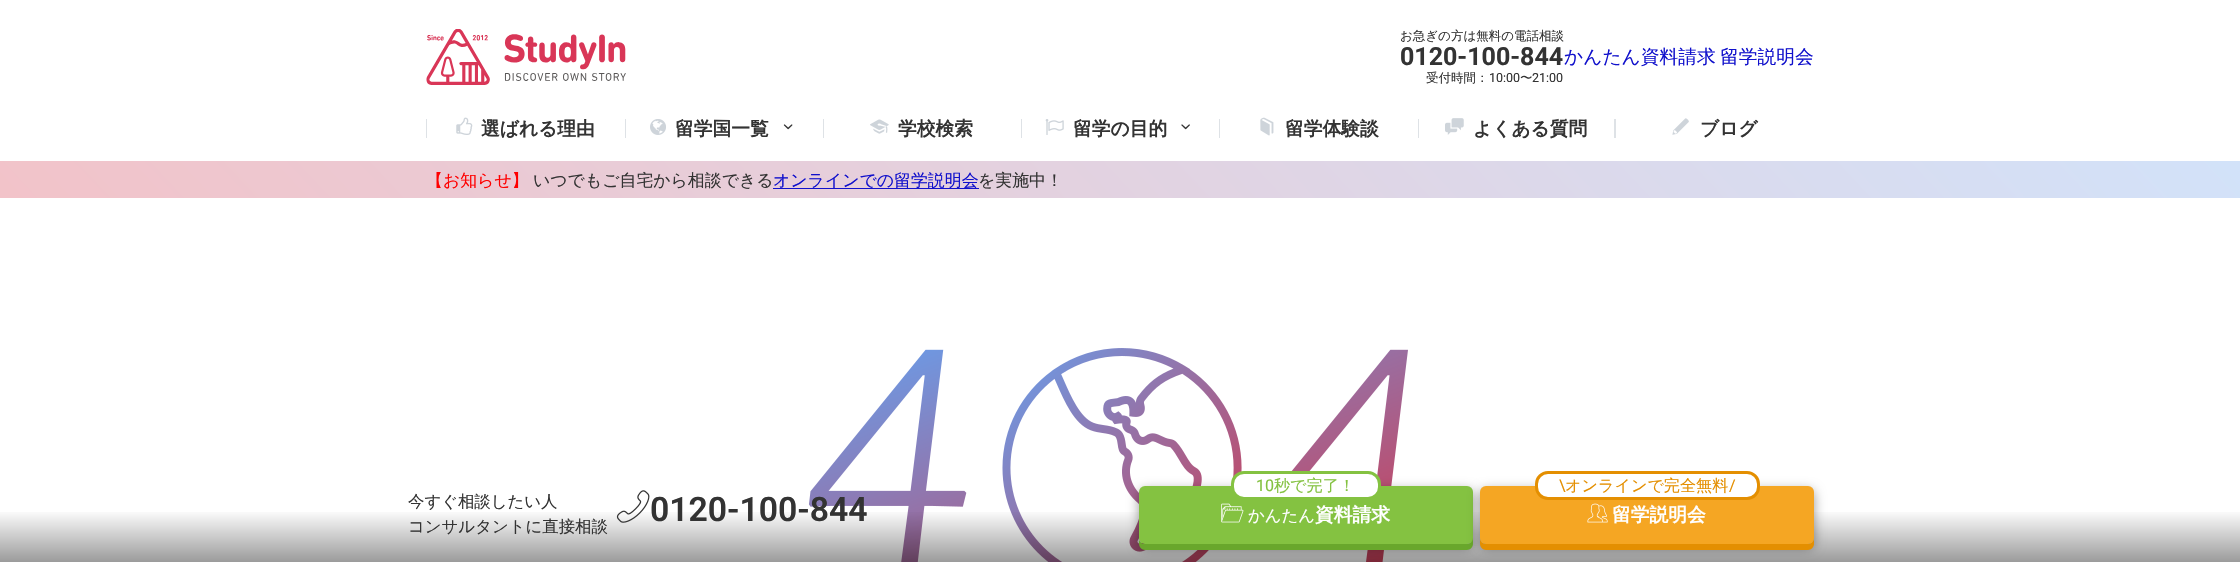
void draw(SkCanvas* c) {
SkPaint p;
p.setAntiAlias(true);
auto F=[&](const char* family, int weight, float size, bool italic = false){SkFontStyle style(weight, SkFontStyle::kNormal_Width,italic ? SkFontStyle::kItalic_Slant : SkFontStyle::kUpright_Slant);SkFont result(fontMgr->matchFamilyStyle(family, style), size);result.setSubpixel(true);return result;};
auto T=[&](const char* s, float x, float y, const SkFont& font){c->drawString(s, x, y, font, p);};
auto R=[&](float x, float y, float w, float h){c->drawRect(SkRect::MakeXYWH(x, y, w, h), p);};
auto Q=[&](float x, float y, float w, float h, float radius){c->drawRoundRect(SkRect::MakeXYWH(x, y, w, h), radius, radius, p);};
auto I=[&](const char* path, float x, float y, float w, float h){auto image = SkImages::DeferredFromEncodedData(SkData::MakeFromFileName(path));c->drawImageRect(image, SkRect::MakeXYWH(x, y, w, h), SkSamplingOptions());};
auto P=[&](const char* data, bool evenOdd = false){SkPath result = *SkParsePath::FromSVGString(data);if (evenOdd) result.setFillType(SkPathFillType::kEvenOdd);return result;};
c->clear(0xffffffff);
I("1.png",426,29,200,56);
auto f1 = F("WenQuanYi Zen Hei",500,12.5);
p.setColor(0xff333333);
T("お急ぎの方は無料の電話相談",1400,40,f1);
auto f2 = F("Roboto",700,25);
T("0120-100-844",1400,65,f2);
T("受付時間：",1426,82,f1);
auto f3 = F("Roboto",400,12.5);
T("10:00",1489,82,f3);
T("〜",1520,82,f1);
T("21:00",1532,82,f3);
auto f4 = F("WenQuanYi Zen Hei",500,18.75);
p.setColor(0xff1111cc);
T("かんたん資料請求",1564,63,f4);
T("留学説明会",1720,63,f4);
p.setColor(0xffdee2e6);
R(426,119,1,19);
I("2.png",456,117,17,18);
auto f5 = F("WenQuanYi Zen Hei",700,18.75);
p.setColor(0xff333333);
T("選ばれる理由",481,135,f5);
p.setColor(0xffdee2e6);
R(625,119,1,19);
I("3.png",650,119,16,16);
p.setColor(0xff333333);
T("留学国一覧",675,135,f5);
I("4.png",783,124,10,6);
p.setColor(0xffdee2e6);
R(823,119,1,19);
I("5.png",870,119,19,15);
p.setColor(0xff333333);
T("学校検索",898,135,f5);
p.setColor(0xffdee2e6);
R(1021,119,1,19);
I("6.png",1045,119,19,16);
p.setColor(0xff333333);
T("留学の目的",1073,135,f5);
I("7.png",1181,124,9,6);
p.setColor(0xffdee2e6);
R(1219,119,1,19);
I("8.png",1260,117,14,19);
p.setColor(0xff333333);
T("留学体験談",1285,135,f5);
p.setColor(0xffdee2e6);
R(1418,119,1,19);
I("9.png",1445,118,19,17);
p.setColor(0xff333333);
T("よくある質問",1473,135,f5);
p.setColor(0xffdee2e6);
R(1614,119,2,19);
I("10.png",1672,118,17,17);
p.setColor(0xff333333);
T("ブログ",1700,135,f5);
{
const SkColor colors[] = {0xffd2e2f9,0xfff2c3c9};
const float stops[] = {0,1};
const SkPoint ends[] = {{1728,-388}, {512,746}};
p.setShader(SkGradientShader::MakeLinear(ends, colors, stops, 2, SkTileMode::kClamp));
p.setAlpha(255);
}
R(0,161,2240,37);
auto f6 = F("WenQuanYi Zen Hei",500,16.9);
p.setShader(nullptr);
p.setColor(0xffff0000);
T("【お知らせ】",426,186,f6);
p.setColor(0xff333333);
T("いつでもご自宅から相談できる",533,186,f6);
p.setColor(0xff1111cc);
R(773,188,206,1);
T("オンラインでの留学説明会",773,186,f6);
p.setColor(0xff333333);
T("を実施中！",978,186,f6);
I("11.png",809,348,599,214);
{
const SkColor colors[] = {0x00000000,0x66000000};
const float stops[] = {.4,1};
const SkPoint ends[] = {{1120,474}, {1120,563}};
p.setShader(SkGradientShader::MakeLinear(ends, colors, stops, 2, SkTileMode::kClamp));
p.setAlpha(255);
}
R(0,512,2240,50);
auto f7 = F("WenQuanYi Zen Hei",500,16.4);
p.setShader(nullptr);
p.setColor(0xff333333);
T("今すぐ相談したい人",408,507,f7);
T("コンサルタントに直接相談",408,532,f7);
I("12.png",616,490,34,33);
auto f8 = F("Roboto",600,33.75);
T("0120-100-844",650,521,f8);
p.setColor(0x66000000);
p.setMaskFilter(SkMaskFilter::MakeBlur(kNormal_SkBlurStyle, 6));
c->drawRoundRect(SkRect::MakeXYWH(1139,490,334,58),6,6,p);
p.setMaskFilter(nullptr);
p.setColor(0xff69a72c);
c->drawPath(P("M1139 540v4c0 3 3 6 6 6h322c3 0 6-3 6-6v-45l-1-2v41c0 3-2 6-5 6h-323c-2 0-4-2-5-4z"),p);
p.setColor(0xff84c241);
Q(1139,486,334,58,6);
p.setColor(0xffffffff);
c->drawRoundRect(SkRect::MakeXYWH(1232.5,472.5,147,26),11.5,11.5,p);
p.setStroke(true);
p.setStrokeWidth(3);
p.setColor(0xff84c241);
c->drawRoundRect(SkRect::MakeXYWH(1232.5,472.5,147,26),11.5,11.5,p);
auto f9 = F("Roboto",400,16.1);
p.setStroke(false);
T("10",1256,491,f9);
auto f10 = F("WenQuanYi Zen Hei",500,16.1);
T("秒で完了！",1274,491,f10);
I("13.png",1221,503,23,20);
p.setColor(0xffffffff);
T("かんたん",1248,521,f7);
T("資料請求",1315,521,f5);
p.setColor(0x66000000);
p.setMaskFilter(SkMaskFilter::MakeBlur(kNormal_SkBlurStyle, 6));
c->drawRoundRect(SkRect::MakeXYWH(1480,490,334,58),6,6,p);
p.setMaskFilter(nullptr);
p.setColor(0xffe48f01);
c->drawPath(P("M1480 538v6c0 3 3 6 6 6h322c3 0 6-3 6-6v-47v41c0 3-3 6-6 6h-322c-3 0-6-3-6-6z"),p);
p.setColor(0xfff5a623);
Q(1480,486,334,58,6);
p.setColor(0xffffffff);
c->drawRoundRect(SkRect::MakeXYWH(1536.5,472.5,222,26),11.5,11.5,p);
p.setStroke(true);
p.setColor(0xffe48f01);
c->drawRoundRect(SkRect::MakeXYWH(1536.5,472.5,222,26),11.5,11.5,p);
p.setStroke(false);
T("\\",1559,491,f9);
T("オンラインで完全無料",1565,491,f10);
T("/",1729,491,f9);
I("14.png",1587,503,21,20);
p.setColor(0xffffffff);
T("留学説明会",1612,521,f5);
}
